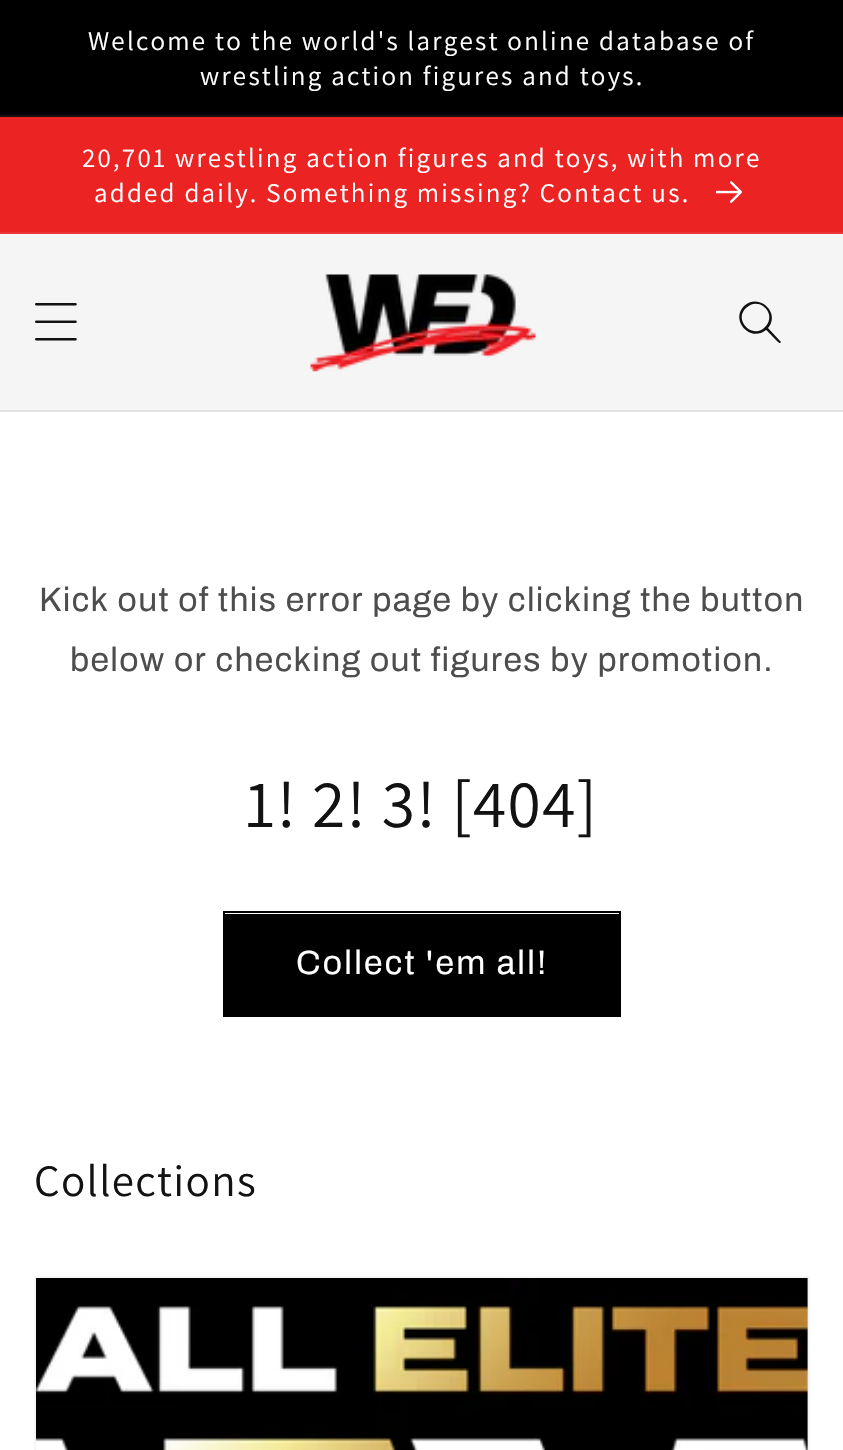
void draw(SkCanvas* c) {
SkPaint p;
p.setAntiAlias(true);
auto F=[&](const char* family, int weight, float size, bool italic = false){SkFontStyle style(weight, SkFontStyle::kNormal_Width,italic ? SkFontStyle::kItalic_Slant : SkFontStyle::kUpright_Slant);SkFont result(fontMgr->matchFamilyStyle(family, style), size);result.setSubpixel(true);return result;};
auto L=[&](const char* s, float x, float y, const SkFont& font, const SkPaint& ink, float letter, float word){std::vector<SkGlyphID> glyphs(font.countText(s, strlen(s), SkTextEncoding::kUTF8));std::vector<float> xs(glyphs.size());font.textToGlyphs(s, strlen(s), SkTextEncoding::kUTF8, glyphs);font.getXPos(glyphs, xs, x);float extra = 0;for (size_t i = 0; i < glyphs.size(); i++) {xs[i] += extra;extra += letter + word * (glyphs[i] == font.unicharToGlyph(' '));}c->drawTextBlob(SkTextBlob::MakeFromPosHGlyphs(glyphs, xs, y, font), 0, 0, ink);};
auto R=[&](float x, float y, float w, float h){c->drawRect(SkRect::MakeXYWH(x, y, w, h), p);};
auto I=[&](const char* path, float x, float y, float w, float h){auto image = SkImages::DeferredFromEncodedData(SkData::MakeFromFileName(path));c->drawImageRect(image, SkRect::MakeXYWH(x, y, w, h), SkSamplingOptions());};
auto P=[&](const char* data, bool evenOdd = false){SkPath result = *SkParsePath::FromSVGString(data);if (evenOdd) result.setFillType(SkPathFillType::kEvenOdd);return result;};
c->clear(0xffffffff);
p.setColor(0xff000000);
R(0,0,843,115);
p.setColor(0xff141414);
R(0,115,843,2);
auto f1 = F("Assistant",400,27);
p.setColor(0xffffffff);
L("Welcome to the world's largest online database of",88,50,f1,p,2.25,0);
L("wrestling action figures and toys.",200,85,f1,p,2.25,0);
p.setColor(0xffeb2323);
R(0,117,843,115);
p.setColor(0xffed3535);
R(0,232,843,2);
p.setColor(0xffffffff);
L("20,701 wrestling action figures and toys, with more",82,167,f1,p,2.25,0);
L("added daily. Something missing? Contact us.",94,202,f1,p,2.25,0);
I("1.png",716,181,26,22);
p.setColor(0xfff5f5f5);
R(0,234,843,176);
p.setColor(0xffe3e3e3);
R(0,410,843,2);
I("2.png",35,303,42,38);
I("3.png",310,274,226,98);
p.setColor(0xff121212);
c->drawPath(P("M765 327c-12 13-32-7-19-19c13-13 32 6 19 19zm1 3c-16 13-36-10-22-24c15-14 37 7 24 22l13 14l-1 1c-1 1-12-12-14-13z",true),p);
auto f2 = F("Archivo",400,33.75);
p.setColor(0xff4d4d4d);
L("Kick out of this error page by clicking the button",39,611,f2,p,1.35,0);
L("below or checking out figures by promotion.",70,671,f2,p,1.35,0);
auto f3 = F("Assistant",400,67.5);
p.setColor(0xff121212);
L("1! 2! 3! [404]",245,827,f3,p,1.35,0);
p.setStroke(true);
p.setStrokeWidth(2);
p.setColor(0xff000000);
c->drawRect(SkRect::MakeXYWH(224,912,396,104),p);
p.setStroke(false);
R(225,914,394,101);
p.setColor(0xffffffff);
L("Collect 'em all!",296,974,f2,p,2.25,0);
auto f4 = F("Assistant",400,45);
p.setColor(0xff121212);
L("Collections",34,1196,f4,p,1.35,0);
p.setStroke(true);
p.setColor(0xfff6f6f6);
c->drawRect(SkRect::MakeXYWH(35,1277,774,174),p);
p.setStroke(false);
p.setColor(0xffdfdfdf);
R(807,1278,1,172);
I("4.png",36,1278,772,172);
}
